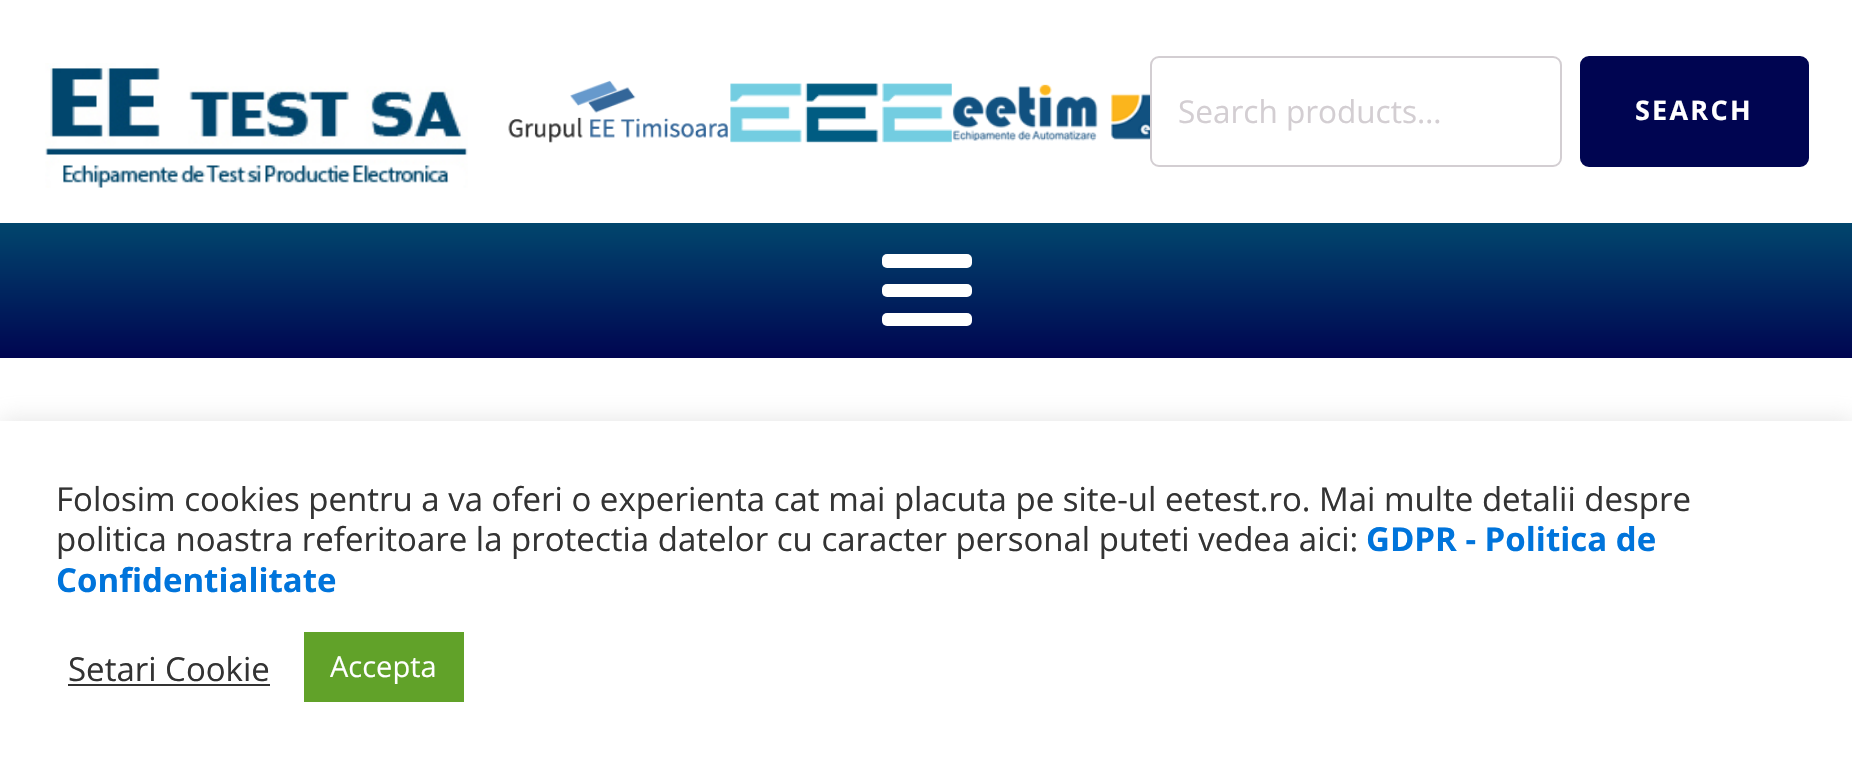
void draw(SkCanvas* c) {
SkPaint p;
p.setAntiAlias(true);
auto F=[&](const char* family, int weight, float size, bool italic = false){SkFontStyle style(weight, SkFontStyle::kNormal_Width,italic ? SkFontStyle::kItalic_Slant : SkFontStyle::kUpright_Slant);SkFont result(fontMgr->matchFamilyStyle(family, style), size);result.setSubpixel(true);return result;};
auto T=[&](const char* s, float x, float y, const SkFont& font){c->drawString(s, x, y, font, p);};
auto L=[&](const char* s, float x, float y, const SkFont& font, const SkPaint& ink, float letter, float word){std::vector<SkGlyphID> glyphs(font.countText(s, strlen(s), SkTextEncoding::kUTF8));std::vector<float> xs(glyphs.size());font.textToGlyphs(s, strlen(s), SkTextEncoding::kUTF8, glyphs);font.getXPos(glyphs, xs, x);float extra = 0;for (size_t i = 0; i < glyphs.size(); i++) {xs[i] += extra;extra += letter + word * (glyphs[i] == font.unicharToGlyph(' '));}c->drawTextBlob(SkTextBlob::MakeFromPosHGlyphs(glyphs, xs, y, font), 0, 0, ink);};
auto R=[&](float x, float y, float w, float h){c->drawRect(SkRect::MakeXYWH(x, y, w, h), p);};
auto Q=[&](float x, float y, float w, float h, float radius){c->drawRoundRect(SkRect::MakeXYWH(x, y, w, h), radius, radius, p);};
auto I=[&](const char* path, float x, float y, float w, float h){auto image = SkImages::DeferredFromEncodedData(SkData::MakeFromFileName(path));c->drawImageRect(image, SkRect::MakeXYWH(x, y, w, h), SkSamplingOptions());};
c->clear(0xffffffff);
I("1.png",45,63,423,125);
I("2.png",508,80,220,63);
I("3.png",730,83,222,60);
I("4.png",952,84,198,57);
p.setStroke(true);
p.setStrokeWidth(2);
p.setColor(0xffd3ced2);
c->drawRoundRect(SkRect::MakeXYWH(1151,57,410,109),8,8,p);
auto f1 = F("Open Sans",400,31.5);
p.setStroke(false);
T("Search products…",1178,123,f1);
p.setColor(0xff000551);
c->drawRoundRect(SkRect::MakeXYWH(1581,57,227,109),8,8,p);
p.setStroke(true);
c->drawRoundRect(SkRect::MakeXYWH(1581,57,227,109),8,8,p);
auto f2 = F("Open Sans",700,27);
p.setStroke(false);
p.setColor(0xffffffff);
L("SEARCH",1635,120,f2,p,2.25,0);
{
const SkColor colors[] = {0xff01466d,0xff000551};
const float stops[] = {0,1};
const SkPoint ends[] = {{927,223}, {927,358}};
p.setShader(SkGradientShader::MakeLinear(ends, colors, stops, 2, SkTileMode::kClamp));
p.setAlpha(255);
}
R(0,223,1852,135);
p.setShader(nullptr);
p.setColor(0xffffffff);
Q(882,254,90,14,5);
Q(882,284,90,13,5);
Q(882,313,90,13,5);
p.setColor(0x4dacabab);
p.setMaskFilter(SkMaskFilter::MakeBlur(kNormal_SkBlurStyle, 11));
c->drawRect(SkRect::MakeXYWH(0,419,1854,348),p);
p.setMaskFilter(nullptr);
p.setColor(0xffffffff);
R(0,421,1852,347);
auto f3 = F("Open Sans",400,33);
p.setColor(0xff333333);
T("Folosim cookies pentru a va oferi o experienta cat mai placuta pe site-ul eetest.ro. Mai multe detalii despre",56,511,f3);
T("politica noastra referitoare la protectia datelor cu caracter personal puteti vedea aici:",56,551,f3);
auto f4 = F("Open Sans",700,33);
p.setColor(0xff0074db);
T("GDPR - Politica de",1366,551,f4);
T("Confidentialitate",56,592,f4);
p.setColor(0xff333333);
T("Setari Cookie",68,681,f3);
R(68,684,202,2);
p.setColor(0xff61a229);
R(304,632,160,70);
auto f5 = F("Open Sans",400,29);
p.setColor(0xffffffff);
T("Accepta",330,677,f5);
}
